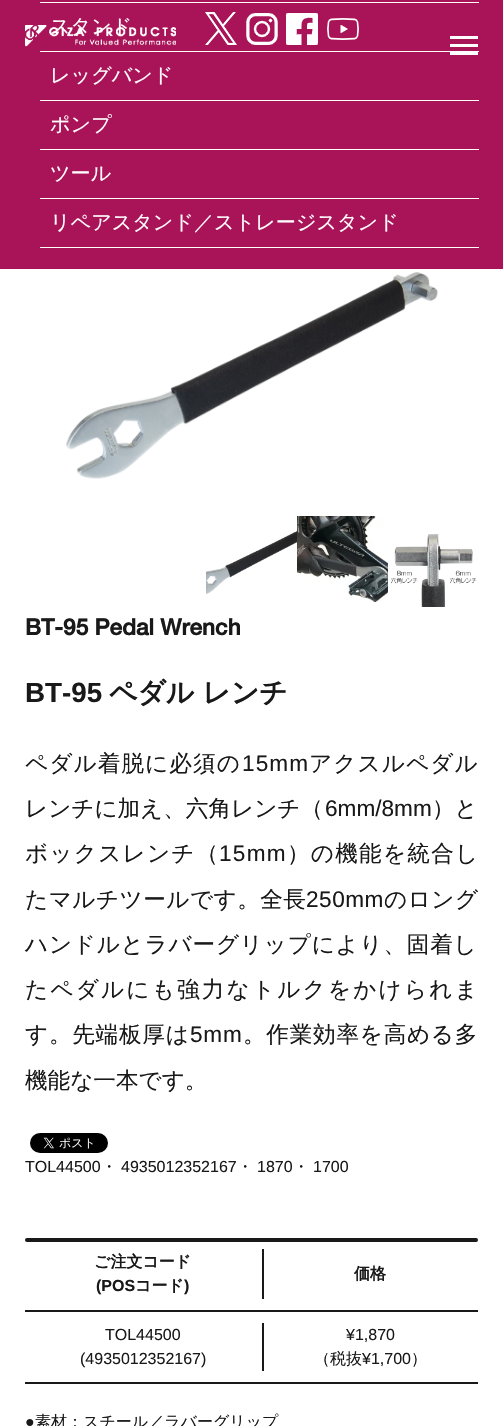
void draw(SkCanvas* c) {
SkPaint p;
p.setAntiAlias(true);
auto F=[&](const char* family, int weight, float size, bool italic = false){SkFontStyle style(weight, SkFontStyle::kNormal_Width,italic ? SkFontStyle::kItalic_Slant : SkFontStyle::kUpright_Slant);SkFont result(fontMgr->matchFamilyStyle(family, style), size);result.setSubpixel(true);return result;};
auto T=[&](const char* s, float x, float y, const SkFont& font){c->drawString(s, x, y, font, p);};
auto L=[&](const char* s, float x, float y, const SkFont& font, const SkPaint& ink, float letter, float word){std::vector<SkGlyphID> glyphs(font.countText(s, strlen(s), SkTextEncoding::kUTF8));std::vector<float> xs(glyphs.size());font.textToGlyphs(s, strlen(s), SkTextEncoding::kUTF8, glyphs);font.getXPos(glyphs, xs, x);float extra = 0;for (size_t i = 0; i < glyphs.size(); i++) {xs[i] += extra;extra += letter + word * (glyphs[i] == font.unicharToGlyph(' '));}c->drawTextBlob(SkTextBlob::MakeFromPosHGlyphs(glyphs, xs, y, font), 0, 0, ink);};
auto R=[&](float x, float y, float w, float h){c->drawRect(SkRect::MakeXYWH(x, y, w, h), p);};
auto Q=[&](float x, float y, float w, float h, float radius){c->drawRoundRect(SkRect::MakeXYWH(x, y, w, h), radius, radius, p);};
auto I=[&](const char* path, float x, float y, float w, float h){auto image = SkImages::DeferredFromEncodedData(SkData::MakeFromFileName(path));c->drawImageRect(image, SkRect::MakeXYWH(x, y, w, h), SkSamplingOptions());};
c->clear(0xffffffff);
p.setColor(0xffa91459);
R(0,0,503,269);
I("1.png",205,12,32,33);
I("2.png",246,13,32,32);
I("3.png",286,13,32,32);
I("4.png",327,18,32,22);
p.setColor(0xffffffff);
R(40,2,439,1);
R(40,51,439,1);
auto f1 = F("WenQuanYi Zen Hei",500,20.1);
T("スタンド",50,33,f1);
R(40,100,439,1);
T("レッグバンド",50,82,f1);
R(40,149,439,1);
T("ポンプ",50,131,f1);
R(40,198,439,1);
T("ツール",50,180,f1);
R(40,247,439,1);
T("リペアスタンド／ストレージスタンド",50,229,f1);
I("5.png",25,25,151,22);
R(450,36,28,3);
R(450,44,28,3);
R(450,52,28,3);
I("6.png",65,272,373,207);
I("7.png",206,531,91,63);
I("8.png",297,516,91,87);
I("9.png",390,533,87,74);
auto f2 = F("Helvetica Neue",700,22.6);
p.setColor(0xff191919);
T("BT-95 Pedal Wrench",25,635,f2);
auto f3 = F("Liberation Sans",700,27.75);
T("BT-95",25,702,f3);
auto f4 = F("WenQuanYi Zen Hei",700,27.75);
T("ペダル レンチ",109,702,f4);
auto f5 = F("WenQuanYi Zen Hei",500,22.6);
L("ペダル着脱に必須の",25,771,f5,p,1.1,0);
auto f6 = F("Liberation Sans",400,22.6);
L("15mm",242,771,f6,p,1.1,0);
L("アクスルペダル",309,771,f5,p,1.1,0);
T("レンチに加え、六角レンチ（",25,816,f5);
T("6mm/8mm",325,816,f6);
T("）と",432,816,f5);
L("ボックスレンチ（",25,861,f5,p,1.25,0);
L("15mm",219,861,f6,p,1.25,0);
L("）の機能を統合し",287,861,f5,p,1.25,0);
L("たマルチツールです。全長",25,907,f5,p,.5,0);
L("250mm",306,907,f6,p,.5,0);
L("のロング",384,907,f5,p,.5,0);
L("ハンドルとラバーグリップにより、固着し",25,952,f5,p,.8,0);
L("たペダルにも強力なトルクをかけられま",25,997,f5,p,2.2,0);
L("す。先端板厚は",25,1042,f5,p,.75,0);
L("5mm",190,1042,f6,p,.75,0);
L("。作業効率を高める多",243,1042,f5,p,.75,0);
T("機能な一本です。",25,1088,f5);
I("10.png",30,1133,78,20);
auto f7 = F("Liberation Sans",400,16);
T("TOL44500",25,1172,f7);
auto f8 = F("WenQuanYi Zen Hei",500,16);
T("・",101,1172,f8);
T("4935012352167",121,1172,f7);
T("・",237,1172,f8);
T("1870",257,1172,f7);
T("・",293,1172,f8);
T("1700",313,1172,f7);
Q(25,1238,453,4,2);
R(25,1310,453,2);
auto f9 = F("WenQuanYi Zen Hei",700,16);
T("ご注文コード",94,1267,f9);
auto f10 = F("Liberation Sans",700,16);
T("(POS",96,1291,f10);
T("コード",135,1291,f9);
T(")",184,1291,f10);
R(262,1249,2,50);
T("価格",354,1279,f9);
R(25,1382,453,2);
T("TOL44500",105,1340,f7);
T("(4935012352167)",80,1364,f7);
R(262,1323,2,48);
T("¥1,870",346,1340,f7);
T("（税抜",314,1364,f8);
T("¥1,700",362,1364,f7);
T("）",411,1364,f8);
T("●",25,1427,f7);
T("素材：スチール／ラバーグリップ",35,1427,f8);
}
